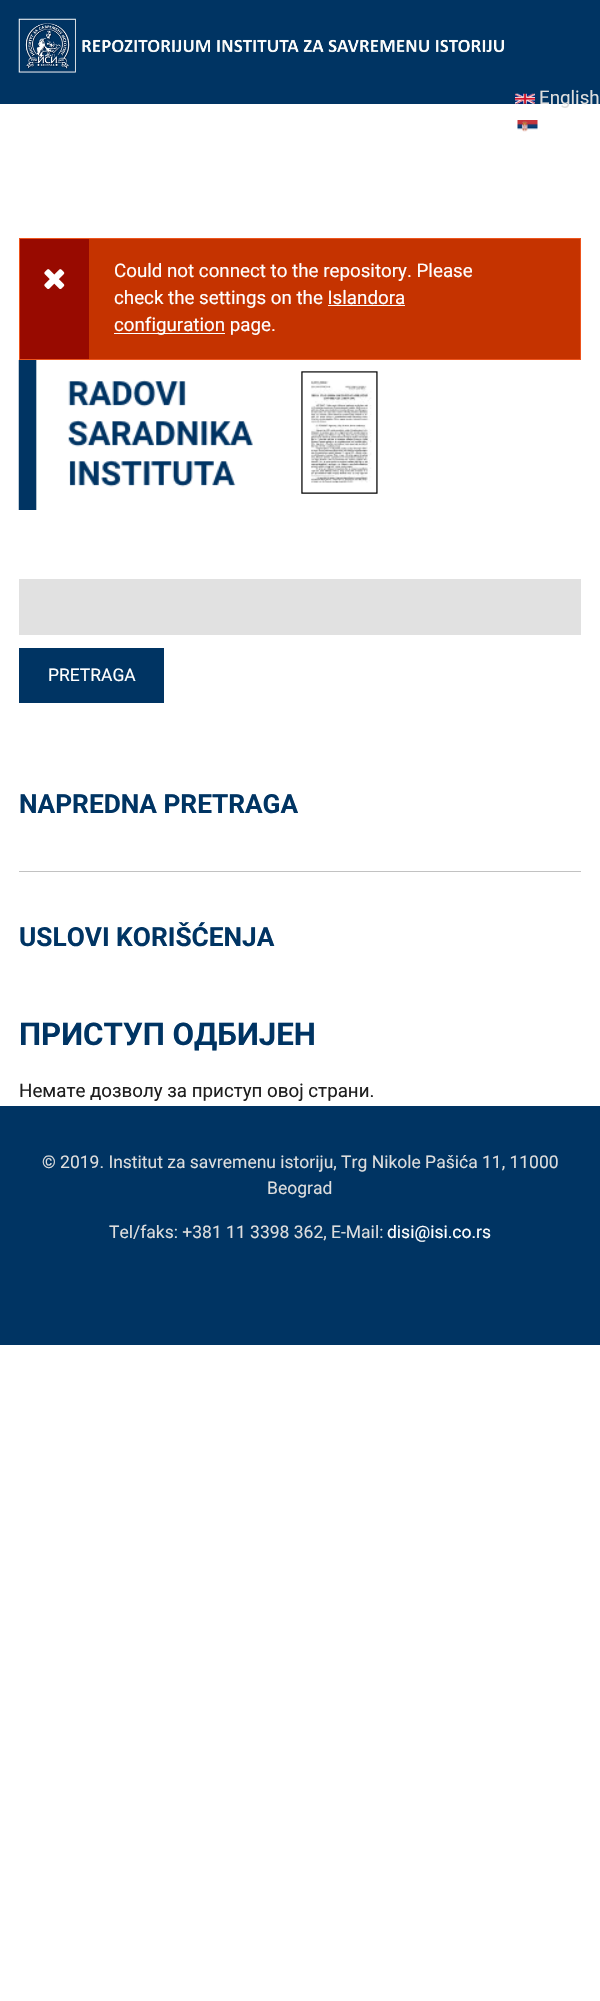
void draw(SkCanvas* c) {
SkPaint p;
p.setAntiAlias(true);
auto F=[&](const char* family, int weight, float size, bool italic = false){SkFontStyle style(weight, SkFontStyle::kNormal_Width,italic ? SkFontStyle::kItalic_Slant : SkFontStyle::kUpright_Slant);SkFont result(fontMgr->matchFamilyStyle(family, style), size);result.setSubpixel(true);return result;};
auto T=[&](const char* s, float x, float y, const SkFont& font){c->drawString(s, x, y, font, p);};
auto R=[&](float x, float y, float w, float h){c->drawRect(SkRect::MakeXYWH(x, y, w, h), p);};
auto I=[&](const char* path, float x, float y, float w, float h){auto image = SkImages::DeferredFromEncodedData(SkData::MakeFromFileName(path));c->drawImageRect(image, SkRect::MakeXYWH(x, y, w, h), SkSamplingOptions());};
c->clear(0xffffffff);
p.setColor(0xff003463);
R(0,0,600,104);
I("1.png",18,18,487,55);
I("2.png",515,93,20,11);
auto f1 = F("Roboto",400,18.75);
p.setColor(0xffdddddd);
T("English",539,104,f1);
I("3.png",517,120,21,12);
p.setColor(0xffc53300);
R(89,239,491,120);
p.setStroke(true);
p.setStrokeWidth(1);
p.setColor(0xffed541d);
c->drawRect(SkRect::MakeXYWH(19.5,238.5,561,121),p);
p.setStroke(false);
p.setColor(0xff980a00);
R(20,239,69,120);
I("4.png",44,269,21,20);
p.setColor(0xffffffff);
T("Could not connect to the repository. Please",114,277,f1);
T("check the settings on the Islandora",114,304,f1);
R(114,333,111,1);
T("configuration page.",114,331,f1);
R(328,305,77,1);
I("5.png",18,360,360,150);
p.setColor(0xffe1e1e1);
R(19,579,562,56);
p.setColor(0xff003463);
R(19,648,145,55);
auto f2 = F("Roboto",400,17.5);
p.setColor(0xffffffff);
T("PRETRAGA",48,681,f2);
auto f3 = F("Roboto",700,26.25);
p.setColor(0xff003463);
T("NAPREDNA PRETRAGA",19,813,f3);
p.setColor(0xffc2c2c2);
R(19,871,562,1);
p.setColor(0xff003463);
T("USLOVI KORIŠĆENJA",19,946,f3);
auto f4 = F("Roboto",700,31.25);
T("ПРИСТУП ОДБИЈЕН",19,1045,f4);
p.setColor(0xff1e1e1e);
T("Немате дозволу за приступ овој страни.",19,1097,f1);
p.setColor(0xff003463);
R(0,1106,600,239);
p.setColor(0xffdddddd);
T("© 2019. Institut za savremenu istoriju, Trg Nikole Pašića 11, 11000",42,1168,f2);
T("Beograd",267,1194,f2);
T("Tel/faks: +381 11 3398 362, E-Mail:",109,1238,f2);
p.setColor(0xffffffff);
T("disi@isi.co.rs",387,1238,f2);
}
